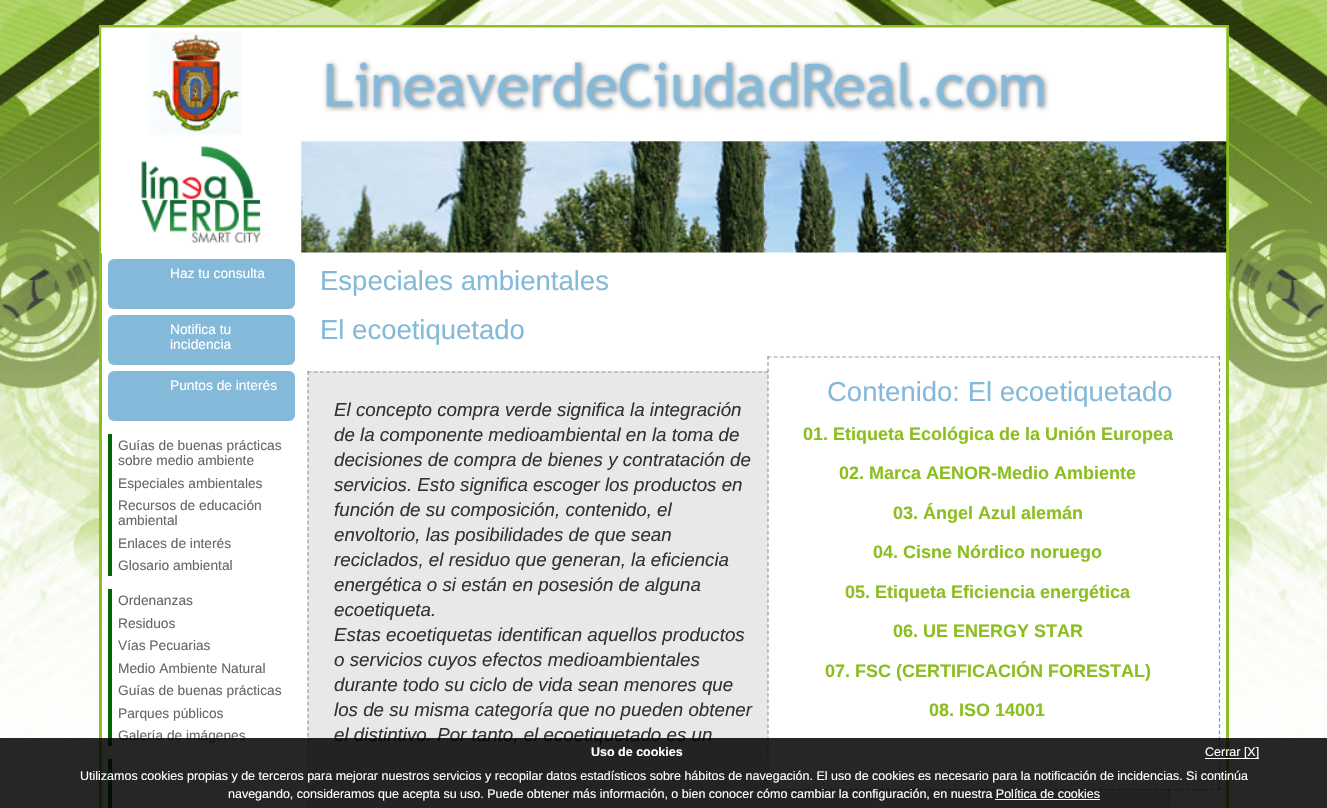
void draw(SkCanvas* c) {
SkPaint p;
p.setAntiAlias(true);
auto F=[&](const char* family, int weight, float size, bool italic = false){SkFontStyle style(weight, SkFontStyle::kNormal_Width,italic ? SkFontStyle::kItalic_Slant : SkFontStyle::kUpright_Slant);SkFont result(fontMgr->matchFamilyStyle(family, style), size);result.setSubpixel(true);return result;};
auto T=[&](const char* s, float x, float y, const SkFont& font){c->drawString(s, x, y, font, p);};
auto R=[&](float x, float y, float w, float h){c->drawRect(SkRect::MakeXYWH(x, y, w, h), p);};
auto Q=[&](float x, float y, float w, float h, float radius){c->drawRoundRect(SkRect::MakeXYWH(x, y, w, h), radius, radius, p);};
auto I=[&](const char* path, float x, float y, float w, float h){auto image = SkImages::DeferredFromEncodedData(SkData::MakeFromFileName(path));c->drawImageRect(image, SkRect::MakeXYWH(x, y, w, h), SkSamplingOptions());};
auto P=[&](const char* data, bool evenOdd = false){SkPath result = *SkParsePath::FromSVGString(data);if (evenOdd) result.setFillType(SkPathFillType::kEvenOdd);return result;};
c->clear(0xffffffff);
I("1.png",0,0,1327,808);
p.setColor(0xffffffff);
R(102,253,1124,555);
p.setStroke(true);
p.setStrokeWidth(3);
p.setColor(0xff8bbe21);
c->drawRect(SkRect::MakeXYWH(100.5,26.5,1127,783),p);
I("2.png",101,27,1126,113);
p.setStroke(false);
p.setColor(0xffffffff);
R(101,140,1125,113);
I("3.png",141,146,120,97);
I("4.png",301,140,926,113);
p.setColor(0xff84b9d9);
Q(108,259,187,50,6);
auto f1 = F("Liberation Sans",400,13.75);
p.setColor(0xffffffff);
T("Haz tu consulta",170,278,f1);
p.setColor(0xff84b9d9);
Q(108,315,187,50,6);
p.setColor(0xffffffff);
T("Notifica tu",170,334,f1);
T("incidencia",170,349,f1);
p.setColor(0xff84b9d9);
Q(108,371,187,50,6);
p.setColor(0xffffffff);
T("Puntos de interés",170,390,f1);
p.setColor(0xff006600);
R(108,434,4,142);
p.setColor(0xff666666);
T("Guías de buenas prácticas",118,450,f1);
T("sobre medio ambiente",118,465,f1);
T("Especiales ambientales",118,488,f1);
T("Recursos de educación",118,510,f1);
T("ambiental",118,525,f1);
T("Enlaces de interés",118,548,f1);
T("Glosario ambiental",118,570,f1);
p.setColor(0xff006600);
R(108,589,4,157);
p.setColor(0xff666666);
T("Ordenanzas",118,605,f1);
T("Residuos",118,628,f1);
T("Vías Pecuarias",118,650,f1);
T("Medio Ambiente Natural",118,673,f1);
T("Guías de buenas prácticas",118,695,f1);
T("Parques públicos",118,718,f1);
T("Galería de imágenes",118,740,f1);
p.setColor(0xff006600);
R(108,759,4,49);
auto f2 = F("Liberation Sans",400,27.5);
p.setColor(0xff84b9d9);
T("Especiales ambientales",320,290,f2);
T("El ecoetiquetado",320,339,f2);
p.setColor(0xffe8e8e8);
R(308,371,862,437);
p.setStroke(true);
p.setStrokeWidth(1.2);
p.setColor(0xff999999);
p.setPathEffect(SkDashPathEffect::Make({{3.75f,2.51f}}, 0));
c->drawPath(P("M307.5 372h862.5"),p);
p.setPathEffect(nullptr);
p.setPathEffect(SkDashPathEffect::Make({{3.75f,2.49f}}, 0));
c->drawPath(P("M1169.5 371v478"),p);
p.setPathEffect(nullptr);
p.setPathEffect(SkDashPathEffect::Make({{3.75f,2.49f}}, 0));
c->drawPath(P("M308 371v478"),p);
p.setPathEffect(nullptr);
auto f3 = F("Liberation Sans",400,18.75,true);
p.setStroke(false);
p.setColor(0xff333333);
T("El concepto compra verde significa la integración",334,416,f3);
T("de la componente medioambiental en la toma de",334,441,f3);
T("decisiones de compra de bienes y contratación de",334,466,f3);
T("servicios. Esto significa escoger los productos en",334,491,f3);
T("función de su composición, contenido, el",334,516,f3);
T("envoltorio, las posibilidades de que sean",334,541,f3);
T("reciclados, el residuo que generan, la eficiencia",334,566,f3);
T("energética o si están en posesión de alguna",334,591,f3);
T("ecoetiqueta.",334,616,f3);
T("Estas ecoetiquetas identifican aquellos productos",334,641,f3);
T("o servicios cuyos efectos medioambientales",334,666,f3);
T("durante todo su ciclo de vida sean menores que",334,691,f3);
T("los de su misma categoría que no pueden obtener",334,716,f3);
T("el distintivo. Por tanto, el ecoetiquetado es un",334,741,f3);
p.setColor(0xffffffff);
R(768,371,403,419);
p.setStroke(true);
p.setColor(0xff999999);
p.setPathEffect(SkDashPathEffect::Make({{3.75f,2.49f}}, 0));
c->drawPath(P("M767.5 357h452.5"),p);
p.setPathEffect(nullptr);
p.setPathEffect(SkDashPathEffect::Make({{3.75f,2.49f}}, 0));
c->drawPath(P("M1219.5 356v434"),p);
p.setPathEffect(nullptr);
p.setPathEffect(SkDashPathEffect::Make({{3.75f,2.49f}}, 0));
c->drawPath(P("M767.5 789.5h452.5"),p);
p.setPathEffect(nullptr);
p.setPathEffect(SkDashPathEffect::Make({{3.75f,2.49f}}, 0));
c->drawPath(P("M768 356v434"),p);
p.setPathEffect(nullptr);
p.setStroke(false);
p.setColor(0xff84b9d9);
T("Contenido: El ecoetiquetado",827,401,f2);
auto f4 = F("Liberation Sans",700,18);
p.setColor(0xff8bbe21);
T("01. Etiqueta Ecológica de la Unión Europea",803,440,f4);
T("02. Marca AENOR-Medio Ambiente",839,479,f4);
T("03. Ángel Azul alemán",893,519,f4);
T("04. Cisne Nórdico noruego",873,558,f4);
T("05. Etiqueta Eficiencia energética",845,598,f4);
T("06. UE ENERGY STAR",893,637,f4);
T("07. FSC (CERTIFICACIÓN FORESTAL)",825,677,f4);
T("08. ISO 14001",929,716,f4);
p.setColor(0xd9000000);
R(0,738,1327,70);
auto f5 = F("Liberation Sans",700,12.5);
p.setColor(0xffffffff);
T("Uso de cookies",591,756,f5);
R(1205,758,54,1);
auto f6 = F("Liberation Sans",400,12.5);
T("Cerrar [X]",1205,756,f6);
T("Utilizamos cookies propias y de terceros para mejorar nuestros servicios y recopilar datos estadísticos sobre hábitos de navegación. El uso de cookies es necesario para la notificación de incidencias. Si continúa",80,780,f6);
T("navegando, consideramos que acepta su uso. Puede obtener más información, o bien conocer cómo cambiar la configuración, en nuestra Política de cookies",228,798,f6);
R(995,799,105,1);
}
